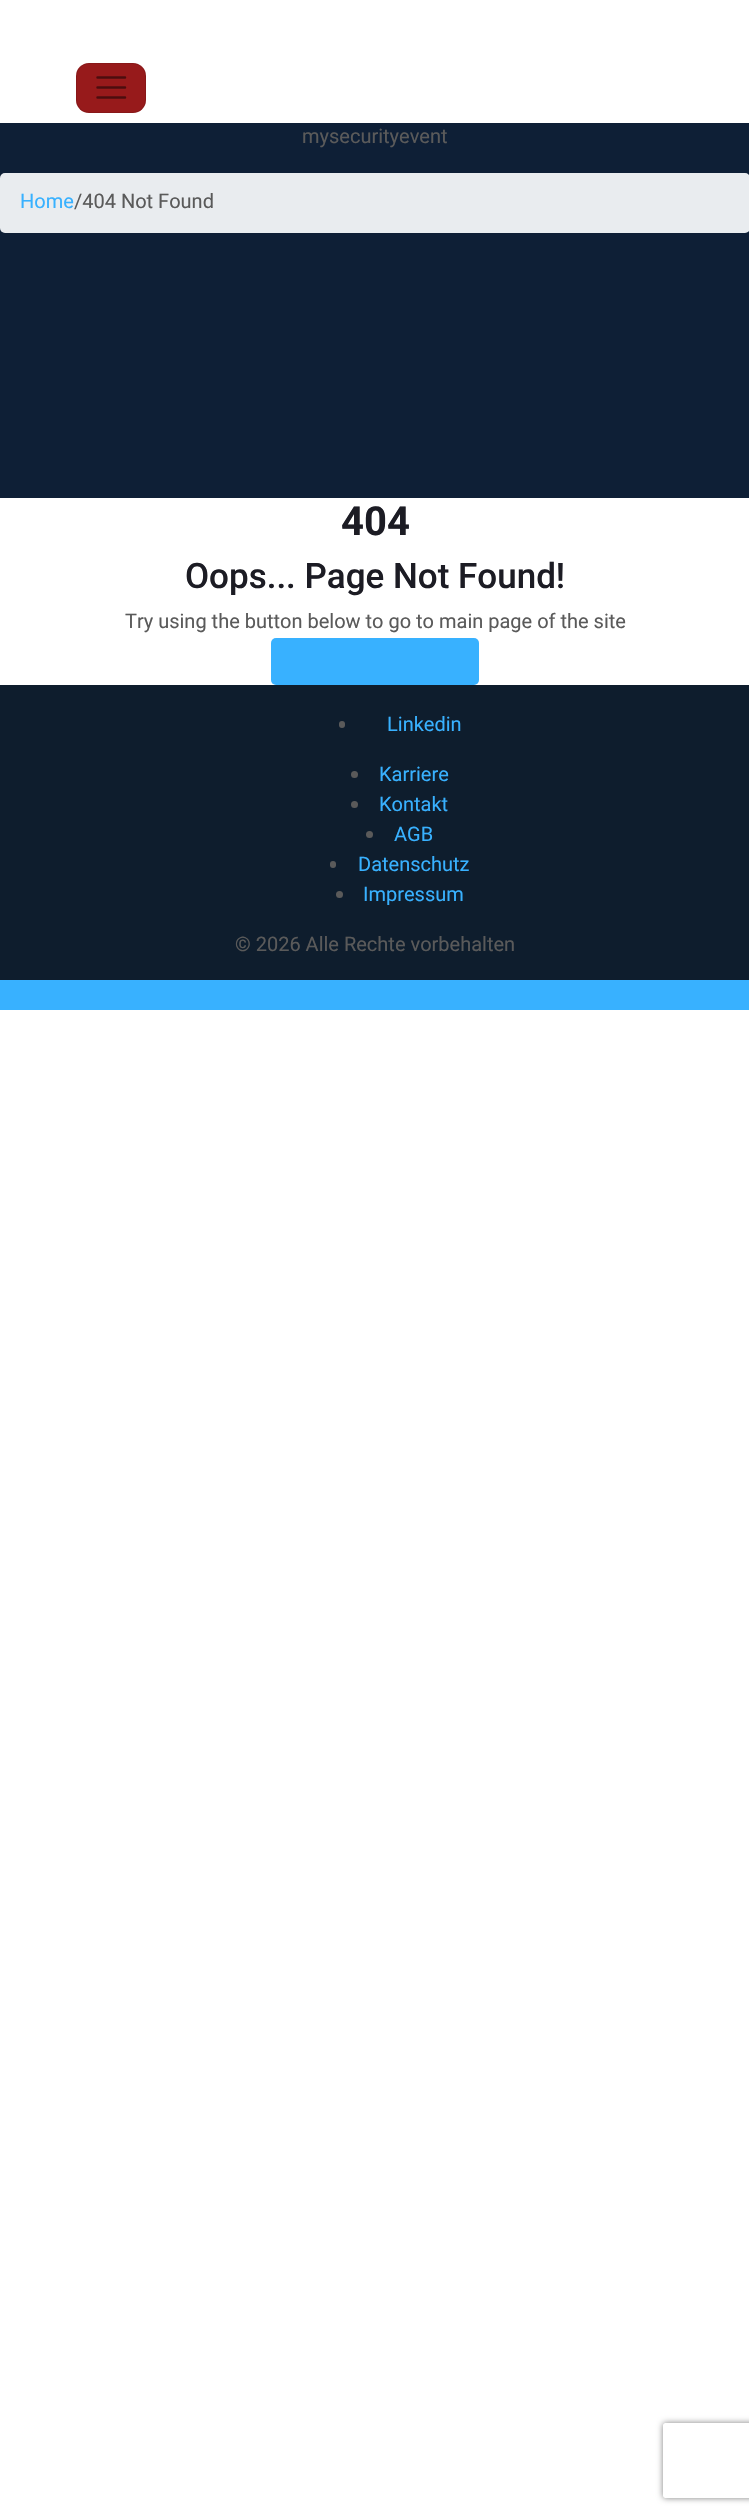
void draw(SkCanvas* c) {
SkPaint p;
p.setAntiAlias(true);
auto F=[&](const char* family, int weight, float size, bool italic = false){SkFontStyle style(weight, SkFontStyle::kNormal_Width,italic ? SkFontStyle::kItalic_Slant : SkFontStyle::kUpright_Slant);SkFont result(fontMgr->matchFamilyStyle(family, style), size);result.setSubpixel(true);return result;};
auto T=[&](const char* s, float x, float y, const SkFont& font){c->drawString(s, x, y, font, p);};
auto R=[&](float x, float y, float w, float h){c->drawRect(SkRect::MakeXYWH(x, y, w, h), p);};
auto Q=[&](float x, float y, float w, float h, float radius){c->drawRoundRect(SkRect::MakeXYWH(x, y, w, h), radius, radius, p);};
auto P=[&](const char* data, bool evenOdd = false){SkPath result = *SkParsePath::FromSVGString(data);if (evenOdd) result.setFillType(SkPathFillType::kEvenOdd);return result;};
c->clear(0xffffffff);
p.setColor(0xff971a1b);
Q(76,63,70,50,13);
p.setStroke(true);
p.setStrokeWidth(1);
p.setColor(0x1a000000);
c->drawRoundRect(SkRect::MakeXYWH(76.5,63.5,69,49),12.5,12.5,p);
p.setStrokeWidth(2.5);
p.setStrokeCap(SkPaint::kRound_Cap);
p.setColor(0xff4c0d0e);
c->drawPath(P("M97.5 77.5h27.5m-27.5 10h27.5m-27.5 10h27.5"),p);
p.setStroke(false);
p.setColor(0xff0e1f36);
R(0,123,749,375);
auto f1 = F("Roboto",400,20);
p.setColor(0xff5a5a5a);
T("mysecurityevent",302,143,f1);
p.setColor(0xffe9ecef);
Q(0,173,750,60,5);
p.setColor(0xff38b1ff);
T("Home",20,208,f1);
p.setColor(0xff5a5a5a);
T("/404 Not Found",74,208,f1);
auto f2 = F("Roboto",700,40);
p.setColor(0xff1c1c24);
T("404",341,535,f2);
auto f3 = F("Roboto",500,35);
T("Oops... Page Not Found!",185,588,f3);
p.setColor(0xff5a5a5a);
T("Try using the button below to go to main page of the site",125,628,f1);
p.setColor(0xff38b1ff);
Q(271,638,208,47,5);
p.setColor(0xff0e1d2d);
R(0,685,749,295);
p.setColor(0xff5a5a5a);
Q(339,721,6,7,3);
p.setColor(0xff38b1ff);
T("Linkedin",387,731,f1);
p.setColor(0xff5a5a5a);
c->drawCircle(354.5,774.5,3.5,p);
p.setColor(0xff38b1ff);
T("Karriere",379,781,f1);
p.setColor(0xff5a5a5a);
c->drawCircle(354.5,804.5,3.5,p);
p.setColor(0xff38b1ff);
T("Kontakt",379,811,f1);
p.setColor(0xff5a5a5a);
c->drawCircle(369.5,834.5,3.5,p);
p.setColor(0xff38b1ff);
T("AGB",394,841,f1);
p.setColor(0xff5a5a5a);
Q(330,861,6,7,3);
p.setColor(0xff38b1ff);
T("Datenschutz",358,871,f1);
p.setColor(0xff5a5a5a);
c->drawCircle(339.5,894.5,3.5,p);
p.setColor(0xff38b1ff);
T("Impressum",363,901,f1);
p.setColor(0xff5a5a5a);
T("© 2026 Alle Rechte vorbehalten",235,951,f1);
p.setColor(0xff38b1ff);
R(0,980,749,30);
c->save();
c->clipPath(P("M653 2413h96v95h-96zm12.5 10h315c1.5 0 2.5 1 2.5 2.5v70c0 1.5-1 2.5-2.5 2.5h-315c-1.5 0-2.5-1-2.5-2.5v-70c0-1.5 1-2.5 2.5-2.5z",true),true);
p.setColor(0xff808080);
p.setMaskFilter(SkMaskFilter::MakeBlur(kNormal_SkBlurStyle, 3));
c->drawRoundRect(SkRect::MakeXYWH(663,2423,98,75),2.5,2.5,p);
p.setMaskFilter(nullptr);
c->restore();
}
